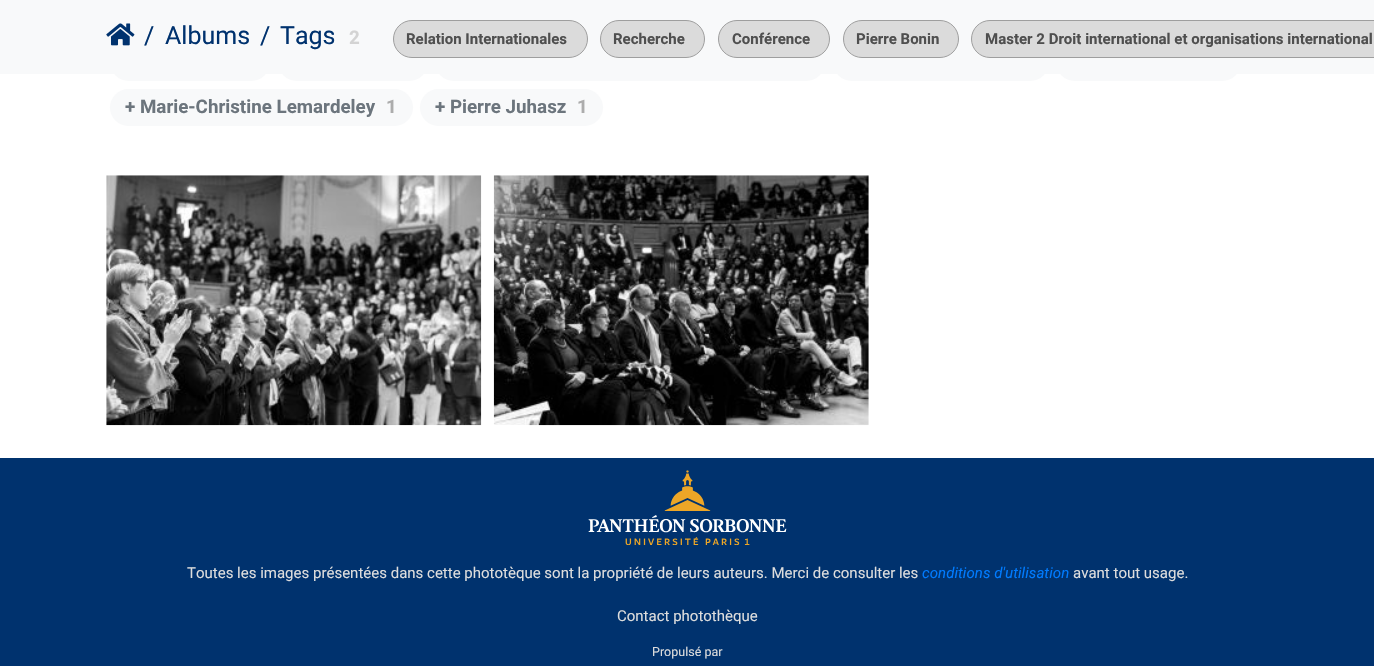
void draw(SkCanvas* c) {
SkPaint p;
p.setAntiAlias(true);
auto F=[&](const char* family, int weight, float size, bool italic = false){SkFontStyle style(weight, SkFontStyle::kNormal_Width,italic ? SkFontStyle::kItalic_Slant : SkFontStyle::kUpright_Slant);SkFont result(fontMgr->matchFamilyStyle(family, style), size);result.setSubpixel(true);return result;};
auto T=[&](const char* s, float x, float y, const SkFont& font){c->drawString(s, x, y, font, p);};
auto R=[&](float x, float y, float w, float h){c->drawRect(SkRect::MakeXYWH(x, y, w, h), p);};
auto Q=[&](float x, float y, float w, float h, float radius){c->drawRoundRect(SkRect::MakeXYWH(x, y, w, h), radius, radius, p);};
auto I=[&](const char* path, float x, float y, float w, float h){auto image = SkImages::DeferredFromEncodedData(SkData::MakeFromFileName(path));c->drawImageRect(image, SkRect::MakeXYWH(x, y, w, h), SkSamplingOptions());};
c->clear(0xffffffff);
p.setColor(0xfff8f9fa);
Q(110,43,160,38,19);
Q(278,43,150,38,19);
Q(435,43,390,38,19);
Q(833,43,216,38,19);
Q(1056,43,185,38,19);
R(0,0,1374,74);
I("1.png",106,23,29,23);
auto f1 = F("Roboto",400,25);
p.setColor(0xff00326e);
T("/",144,44,f1);
T("Albums",165,44,f1);
T("/",260,44,f1);
T("Tags",280,44,f1);
auto f2 = F("Roboto",700,18.75);
p.setColor(0xffd3d3d3);
T("2",349,44,f2);
p.setColor(0xffdbdbdb);
c->drawRoundRect(SkRect::MakeXYWH(393.5,20.5,194,37),18.5,18.5,p);
p.setStroke(true);
p.setStrokeWidth(1);
p.setColor(0xff9e9e9e);
c->drawRoundRect(SkRect::MakeXYWH(393.5,20.5,194,37),18.5,18.5,p);
auto f3 = F("Roboto",700,15);
p.setStroke(false);
p.setColor(0xff4f4f4f);
T("Relation Internationales",406,44,f3);
p.setColor(0xffdbdbdb);
c->drawRoundRect(SkRect::MakeXYWH(600.5,20.5,104,37),18.5,18.5,p);
p.setStroke(true);
p.setColor(0xff9e9e9e);
c->drawRoundRect(SkRect::MakeXYWH(600.5,20.5,104,37),18.5,18.5,p);
p.setStroke(false);
p.setColor(0xff4f4f4f);
T("Recherche",613,44,f3);
p.setColor(0xffdbdbdb);
c->drawRoundRect(SkRect::MakeXYWH(718.5,20.5,111,37),18.5,18.5,p);
p.setStroke(true);
p.setColor(0xff9e9e9e);
c->drawRoundRect(SkRect::MakeXYWH(718.5,20.5,111,37),18.5,18.5,p);
p.setStroke(false);
p.setColor(0xff4f4f4f);
T("Conférence",732,44,f3);
p.setColor(0xffdbdbdb);
c->drawRoundRect(SkRect::MakeXYWH(843.5,20.5,115,37),18.5,18.5,p);
p.setStroke(true);
p.setColor(0xff9e9e9e);
c->drawRoundRect(SkRect::MakeXYWH(843.5,20.5,115,37),18.5,18.5,p);
p.setStroke(false);
p.setColor(0xff4f4f4f);
T("Pierre Bonin",856,44,f3);
p.setColor(0xffdbdbdb);
c->drawRoundRect(SkRect::MakeXYWH(971.5,20.5,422,37),18.5,18.5,p);
p.setStroke(true);
p.setColor(0xff9e9e9e);
c->drawRoundRect(SkRect::MakeXYWH(971.5,20.5,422,37),18.5,18.5,p);
p.setStroke(false);
p.setColor(0xff4f4f4f);
T("Master 2 Droit international et organisations international",985,44,f3);
p.setColor(0xfff8f9fa);
Q(110,89,303,37,18.5);
p.setColor(0xff6c757d);
T("+ Marie-Christine Lemardeley",125,113,f2);
p.setColor(0xffacacac);
T("1",386,113,f2);
p.setColor(0xfff8f9fa);
Q(420,89,183,37,18.5);
p.setColor(0xff6c757d);
T("+ Pierre Juhasz",435,113,f2);
p.setColor(0xffacacac);
T("1",577,113,f2);
I("2.png",106,175,376,251);
I("3.png",493,175,376,251);
p.setColor(0xff00326e);
R(0,458,1374,208);
I("4.png",588,470,199,75);
auto f4 = F("Roboto",400,15);
p.setColor(0xffdddddd);
T("Toutes les images présentées dans cette phototèque sont la propriété de leurs auteurs. Merci de consulter les",187,578,f4);
auto f5 = F("Roboto",400,15,true);
p.setColor(0xff007bff);
T("conditions d'utilisation",922,578,f5);
p.setColor(0xffdddddd);
T("avant tout usage.",1073,578,f4);
T("Contact photothèque",617,621,f4);
auto f6 = F("Roboto",400,12.5);
T("Propulsé par",652,656,f6);
}
